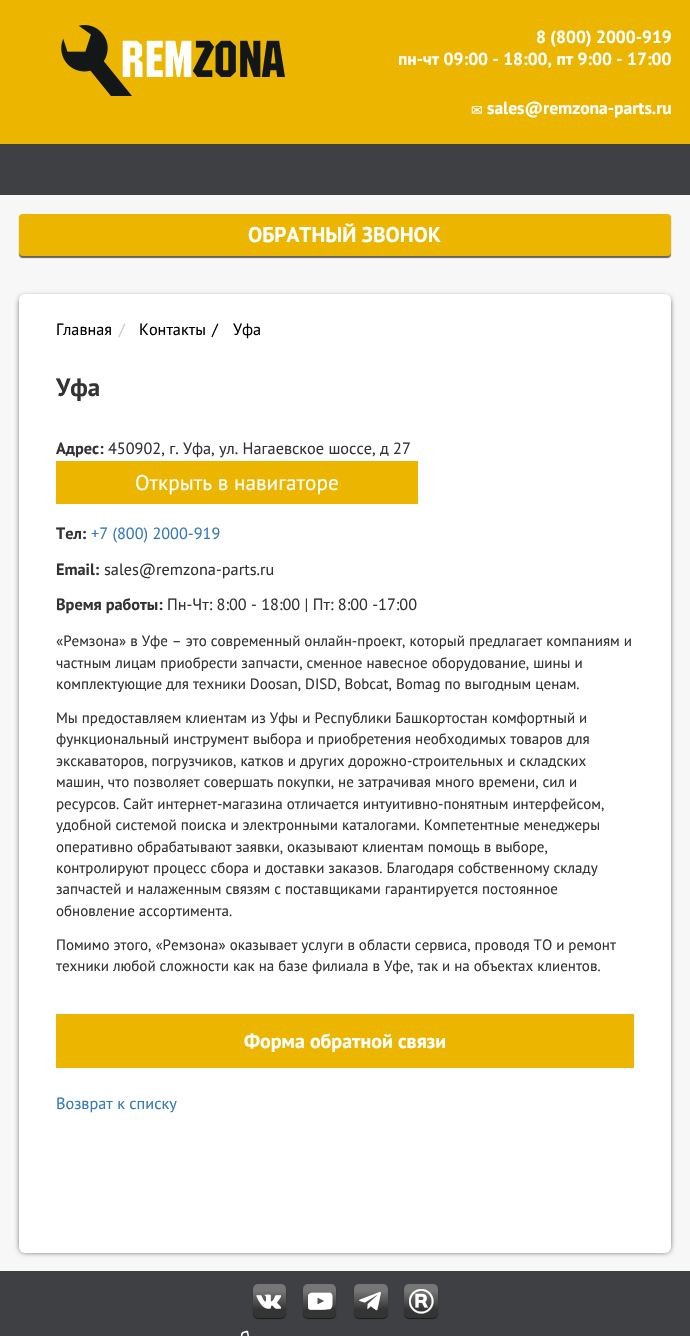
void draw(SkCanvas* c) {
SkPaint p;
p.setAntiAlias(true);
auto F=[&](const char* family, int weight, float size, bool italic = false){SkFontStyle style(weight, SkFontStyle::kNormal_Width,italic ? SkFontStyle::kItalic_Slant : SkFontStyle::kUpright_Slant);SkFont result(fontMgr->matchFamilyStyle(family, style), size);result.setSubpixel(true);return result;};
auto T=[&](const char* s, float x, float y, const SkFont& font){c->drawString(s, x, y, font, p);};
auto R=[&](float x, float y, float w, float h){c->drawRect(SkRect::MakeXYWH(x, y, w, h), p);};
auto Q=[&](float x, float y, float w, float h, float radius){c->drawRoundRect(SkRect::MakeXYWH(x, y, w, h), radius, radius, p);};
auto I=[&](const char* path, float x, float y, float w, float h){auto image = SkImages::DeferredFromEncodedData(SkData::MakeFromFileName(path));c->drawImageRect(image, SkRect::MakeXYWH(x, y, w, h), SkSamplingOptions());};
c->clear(0xff3f4044);
p.setColor(0xfff7f7f7);
R(0,195,690,1076);
p.setColor(0xffecb500);
R(0,0,690,144);
I("1.png",61,25,224,71);
auto f1 = F("PT Sans",700,17.5);
p.setColor(0xffffffff);
T("8 (800) 2000-919",536,43,f1);
T("пн-чт 09:00 - 18:00, пт 9:00 - 17:00",398,65,f1);
auto f2 = F("DejaVu Sans",400,14);
T("✉",471,115,f2);
T("sales@remzona-parts.ru",487,114,f1);
p.setColor(0x99000000);
p.setMaskFilter(SkMaskFilter::MakeBlur(kNormal_SkBlurStyle, .5));
c->drawRoundRect(SkRect::MakeXYWH(19,215,652,43),4,4,p);
p.setMaskFilter(nullptr);
p.setColor(0xffecb500);
Q(19,214,652,42,4);
auto f3 = F("PT Sans",700,21.25);
p.setColor(0xffffffff);
T("ОБРАТНЫЙ ЗВОНОК",248,242,f3);
p.setColor(0xff000000);
p.setMaskFilter(SkMaskFilter::MakeBlur(kNormal_SkBlurStyle, 3));
c->drawRoundRect(SkRect::MakeXYWH(21,298,648,953),4,4,p);
p.setMaskFilter(nullptr);
p.setColor(0xffffffff);
Q(19,294,652,959,6);
auto f4 = F("PT Sans",400,16.25);
p.setColor(0xff000000);
T("Главная",56,335,f4);
p.setColor(0xffcccccc);
T("/",119,335,f4);
p.setColor(0xff000000);
T("Контакты",139,335,f4);
T("/",212,335,f4);
T("Уфа",233,335,f4);
auto f5 = F("PT Sans",700,25);
p.setColor(0xff333333);
T("Уфа",56,396,f5);
auto f6 = F("PT Sans",700,16.25);
T("Адрес:",56,454,f6);
T("450902, г. Уфа, ул. Нагаевское шоссе, д 27",108,454,f4);
p.setColor(0xffecb500);
R(56,461,362,43);
auto f7 = F("PT Sans",400,21.25);
p.setColor(0xffffffff);
T("Открыть в навигаторе",135,490,f7);
p.setColor(0xff333333);
T("Тел:",56,539,f6);
p.setColor(0xff337ab7);
T("+7 (800) 2000-919",91,539,f4);
p.setColor(0xff333333);
T("Email:",56,575,f6);
T("sales@remzona-parts.ru",104,575,f4);
T("Время работы:",56,610,f6);
T("Пн-Чт: 8:00 - 18:00 | Пт: 8:00 -17:00",167,610,f4);
auto f8 = F("PT Sans",400,15);
T("«Ремзона» в Уфе – это современный онлайн-проект, который предлагает компаниям и",56,646,f8);
T("частным лицам приобрести запчасти, сменное навесное оборудование, шины и",56,668,f8);
T("комплектующие для техники Doosan, DISD, Bobcat, Bomag по выгодным ценам.",56,689,f8);
T("Мы предоставляем клиентам из Уфы и Республики Башкортостан комфортный и",56,723,f8);
T("функциональный инструмент выбора и приобретения необходимых товаров для",56,744,f8);
T("экскаваторов, погрузчиков, катков и других дорожно-строительных и складских",56,766,f8);
T("машин, что позволяет совершать покупки, не затрачивая много времени, сил и",56,787,f8);
T("ресурсов. Сайт интернет-магазина отличается интуитивно-понятным интерфейсом,",56,809,f8);
T("удобной системой поиска и электронными каталогами. Компетентные менеджеры",56,830,f8);
T("оперативно обрабатывают заявки, оказывают клиентам помощь в выборе,",56,852,f8);
T("контролируют процесс сбора и доставки заказов. Благодаря собственному складу",56,873,f8);
T("запчастей и налаженным связям с поставщиками гарантируется постоянное",56,894,f8);
T("обновление ассортимента.",56,916,f8);
T("Помимо этого, «Ремзона» оказывает услуги в области сервиса, проводя ТО и ремонт",56,950,f8);
T("техники любой сложности как на базе филиала в Уфе, так и на объектах клиентов.",56,971,f8);
p.setColor(0xffecb500);
R(56,1014,578,54);
auto f9 = F("PT Sans",700,20);
p.setColor(0xffffffff);
T("Форма обратной связи",244,1048,f9);
p.setColor(0xff337ab7);
T("Возврат к списку",56,1109,f4);
p.setColor(0x99000000);
p.setMaskFilter(SkMaskFilter::MakeBlur(kNormal_SkBlurStyle, .5));
c->drawRoundRect(SkRect::MakeXYWH(253,1285,33,34),5,5,p);
p.setMaskFilter(nullptr);
{
const SkColor colors[] = {0xff767676,0xff343434};
const float stops[] = {.2,.75};
const SkPoint ends[] = {{269,1284}, {269,1318}};
p.setShader(SkGradientShader::MakeLinear(ends, colors, stops, 2, SkTileMode::kClamp));
p.setAlpha(255);
}
Q(253,1284,33,34,5);
I("2.png",256,1294,25,15);
p.setShader(nullptr);
p.setColor(0x99000000);
p.setMaskFilter(SkMaskFilter::MakeBlur(kNormal_SkBlurStyle, .5));
c->drawRoundRect(SkRect::MakeXYWH(303,1285,33,34),5,5,p);
p.setMaskFilter(nullptr);
{
const SkColor colors[] = {0xff767676,0xff343434};
const float stops[] = {.2,.75};
const SkPoint ends[] = {{319,1284}, {319,1318}};
p.setShader(SkGradientShader::MakeLinear(ends, colors, stops, 2, SkTileMode::kClamp));
p.setAlpha(255);
}
Q(303,1284,33,34,5);
I("3.png",308,1292,25,18);
p.setShader(nullptr);
p.setColor(0x99000000);
p.setMaskFilter(SkMaskFilter::MakeBlur(kNormal_SkBlurStyle, .5));
c->drawRoundRect(SkRect::MakeXYWH(354,1285,34,34),5,5,p);
p.setMaskFilter(nullptr);
{
const SkColor colors[] = {0xff767676,0xff343434};
const float stops[] = {.2,.75};
const SkPoint ends[] = {{371,1284}, {371,1318}};
p.setShader(SkGradientShader::MakeLinear(ends, colors, stops, 2, SkTileMode::kClamp));
p.setAlpha(255);
}
Q(354,1284,34,34,5);
I("4.png",359,1292,22,19);
p.setShader(nullptr);
p.setColor(0x99000000);
p.setMaskFilter(SkMaskFilter::MakeBlur(kNormal_SkBlurStyle, .5));
c->drawRoundRect(SkRect::MakeXYWH(404,1285,34,34),5,5,p);
p.setMaskFilter(nullptr);
{
const SkColor colors[] = {0xff767676,0xff343434};
const float stops[] = {.2,.75};
const SkPoint ends[] = {{421,1284}, {421,1318}};
p.setShader(SkGradientShader::MakeLinear(ends, colors, stops, 2, SkTileMode::kClamp));
p.setAlpha(255);
}
Q(404,1284,34,34,5);
I("5.png",409,1289,25,25);
I("6.png",240,1330,9,6);
}
